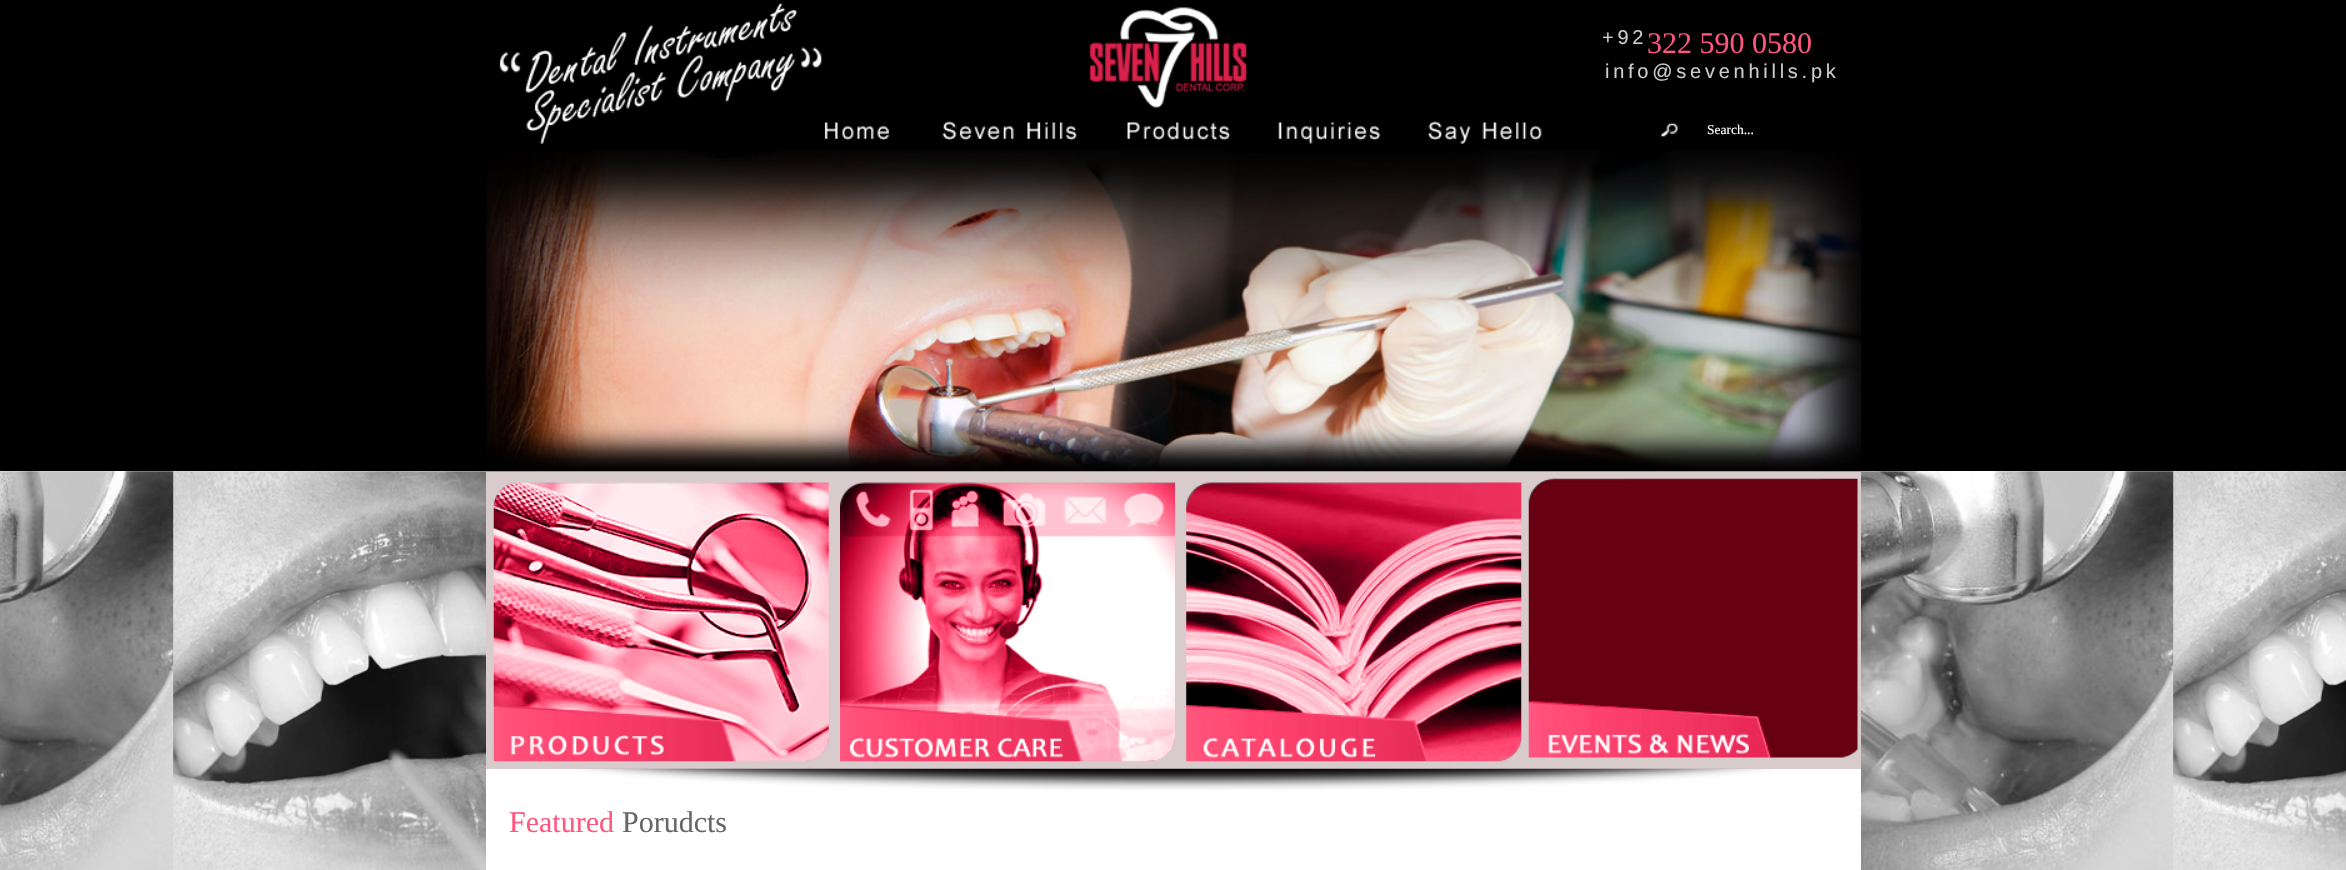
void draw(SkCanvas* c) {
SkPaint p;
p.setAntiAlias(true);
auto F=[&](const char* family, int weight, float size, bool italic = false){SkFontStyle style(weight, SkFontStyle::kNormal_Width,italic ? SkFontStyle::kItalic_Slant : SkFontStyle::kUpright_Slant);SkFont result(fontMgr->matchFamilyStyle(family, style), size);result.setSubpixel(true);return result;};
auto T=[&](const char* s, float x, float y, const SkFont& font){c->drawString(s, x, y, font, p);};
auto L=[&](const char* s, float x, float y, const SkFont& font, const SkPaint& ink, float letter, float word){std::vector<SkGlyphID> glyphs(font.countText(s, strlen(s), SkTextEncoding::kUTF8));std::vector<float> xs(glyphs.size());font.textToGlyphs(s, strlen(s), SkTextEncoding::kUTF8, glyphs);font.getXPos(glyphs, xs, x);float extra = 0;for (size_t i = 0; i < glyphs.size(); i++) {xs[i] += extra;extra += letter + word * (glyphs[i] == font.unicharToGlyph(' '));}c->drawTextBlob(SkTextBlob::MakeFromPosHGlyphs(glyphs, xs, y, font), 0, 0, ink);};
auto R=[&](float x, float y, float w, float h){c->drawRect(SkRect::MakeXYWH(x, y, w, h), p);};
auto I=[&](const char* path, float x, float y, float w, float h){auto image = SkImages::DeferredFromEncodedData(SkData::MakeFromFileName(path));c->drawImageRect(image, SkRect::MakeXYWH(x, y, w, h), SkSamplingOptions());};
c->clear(0xffffffff);
p.setColor(0xff000000);
R(0,0,2346,471);
I("1.png",499,3,323,109);
I("2.png",1089,7,158,101);
auto f1 = F("Liberation Sans",400,20);
p.setColor(0xffcccccc);
L("+92",1602,44,f1,p,3.75,0);
auto f2 = F("Liberation Serif",400,30);
p.setColor(0xffff567d);
T("322 590 0580",1647,53,f2);
p.setColor(0xffcccccc);
L("info@sevenhills.pk",1605,78,f1,p,3.75,0);
I("3.png",526,111,93,33);
I("4.png",824,122,65,19);
I("5.png",942,121,135,20);
I("6.png",1127,122,104,19);
I("7.png",1278,122,103,22);
I("8.png",1428,121,114,23);
I("9.png",1661,123,17,14);
auto f3 = F("Liberation Serif",400,13.5);
p.setColor(0xffffffff);
T("Search...",1707,134,f3);
I("11.png",0,471,2346,399);
p.setColor(0xffd8cbcb);
R(486,471,1375,298);
I("10.png",486,150,1376,322);
I("12.png",493,482,336,280);
I("13.png",840,482,335,280);
I("14.png",1186,482,336,280);
I("15.png",1528,478,330,280);
p.setColor(0xffffffff);
R(486,769,1375,101);
I("16.png",575,768,1197,22);
p.setColor(0xffff567d);
T("Featured",509,832,f2);
p.setColor(0xff666666);
T("Porudcts",622,832,f2);
}
